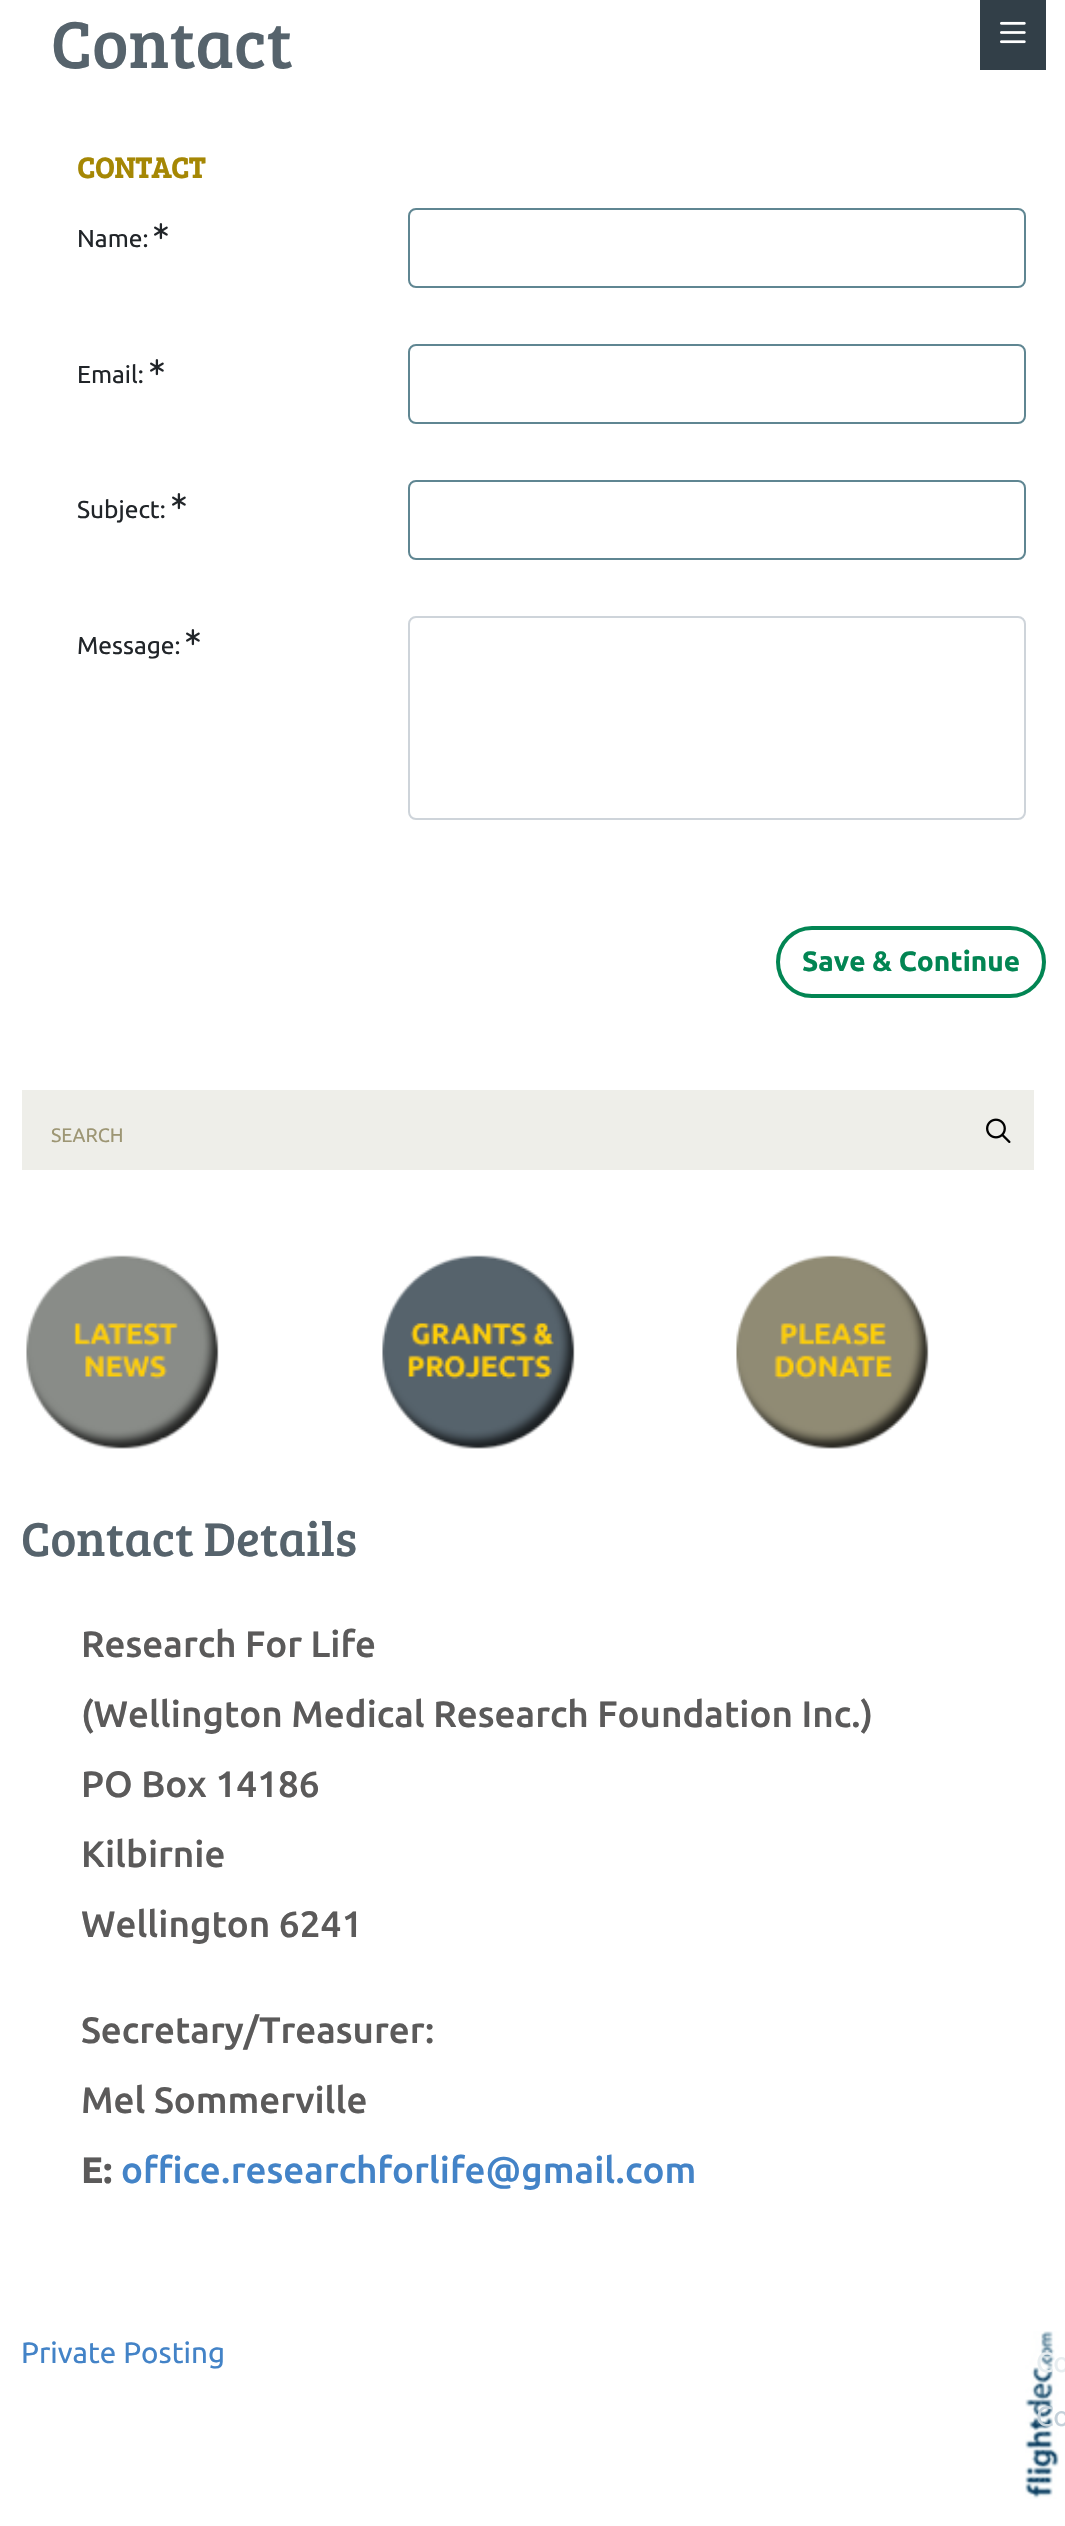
void draw(SkCanvas* c) {
SkPaint p;
p.setAntiAlias(true);
auto F=[&](const char* family, int weight, float size, bool italic = false){SkFontStyle style(weight, SkFontStyle::kNormal_Width,italic ? SkFontStyle::kItalic_Slant : SkFontStyle::kUpright_Slant);SkFont result(fontMgr->matchFamilyStyle(family, style), size);result.setSubpixel(true);return result;};
auto T=[&](const char* s, float x, float y, const SkFont& font){c->drawString(s, x, y, font, p);};
auto R=[&](float x, float y, float w, float h){c->drawRect(SkRect::MakeXYWH(x, y, w, h), p);};
auto I=[&](const char* path, float x, float y, float w, float h){auto image = SkImages::DeferredFromEncodedData(SkData::MakeFromFileName(path));c->drawImageRect(image, SkRect::MakeXYWH(x, y, w, h), SkSamplingOptions());};
c->clear(0xffffffff);
p.setColor(0xff323f48);
R(980,0,66,70);
I("1.png",1000,21,26,23);
auto f1 = F("Bree Serif",400,68.5);
p.setColor(0xff56636c);
T("Contact",51,68,f1);
auto f2 = F("Bree Serif",700,29.5);
p.setColor(0xffa58704);
T("CONTACT",77,178,f2);
auto f3 = F("Ubuntu",400,24.5);
p.setColor(0xff212529);
T("Name:",77,247,f3);
I("2.png",154,223,14,17);
p.setStroke(true);
p.setStrokeWidth(2);
p.setColor(0xff5f8692);
c->drawRoundRect(SkRect::MakeXYWH(409,209,616,78),7,7,p);
p.setStroke(false);
p.setColor(0xff212529);
T("Email:",77,383,f3);
I("2.png",150,359,14,17);
p.setStroke(true);
p.setColor(0xff5f8692);
c->drawRoundRect(SkRect::MakeXYWH(409,345,616,78),7,7,p);
p.setStroke(false);
p.setColor(0xff212529);
T("Subject:",77,518,f3);
I("2.png",172,493,14,17);
p.setStroke(true);
p.setColor(0xff5f8692);
c->drawRoundRect(SkRect::MakeXYWH(409,481,616,78),7,7,p);
p.setStroke(false);
p.setColor(0xff212529);
T("Message:",77,654,f3);
I("2.png",186,629,14,17);
p.setStroke(true);
p.setColor(0xffced4da);
c->drawRoundRect(SkRect::MakeXYWH(409,617,616,202),7,7,p);
p.setStrokeWidth(4);
p.setColor(0xff028553);
c->drawRoundRect(SkRect::MakeXYWH(778,928,266,68),34,34,p);
auto f4 = F("Ubuntu",700,28);
p.setStroke(false);
T("Save & Continue",802,971,f4);
p.setColor(0xffeeeee9);
R(22,1090,1012,80);
auto f5 = F("Ubuntu",400,19.5);
p.setColor(0xff9d9674);
T("SEARCH",51,1142,f5);
I("3.png",986,1118,25,25);
I("4.png",26,1255,193,194);
I("5.png",382,1255,193,194);
I("6.png",736,1255,193,194);
auto f6 = F("Bree Serif",400,49);
p.setColor(0xff56636c);
T("Contact Details",21,1556,f6);
auto f7 = F("Ubuntu",500,36.75);
p.setColor(0xff5b5a5a);
T("Research For Life",81,1657,f7);
T("(Wellington Medical Research Foundation Inc.)",81,1727,f7);
T("PO Box 14186",81,1797,f7);
T("Kilbirnie",81,1867,f7);
T("Wellington 6241",81,1937,f7);
T("Secretary/Treasurer:",81,2043,f7);
T("Mel Sommerville",81,2113,f7);
auto f8 = F("Ubuntu",700,36.75);
T("E:",81,2183,f8);
p.setColor(0xff4383c7);
T("office.researchforlife@gmail.com",121,2183,f7);
auto f9 = F("Ubuntu",400,29.5);
T("Private Posting",21,2363,f9);
I("7.png",1025,2331,34,168);
auto f10 = F("Ubuntu",400,28);
p.setColor(0xffe7edf0);
T("Co",1036,2372,f10);
p.setColor(0xffc4d1da);
T("Co",1036,2426,f10);
}
